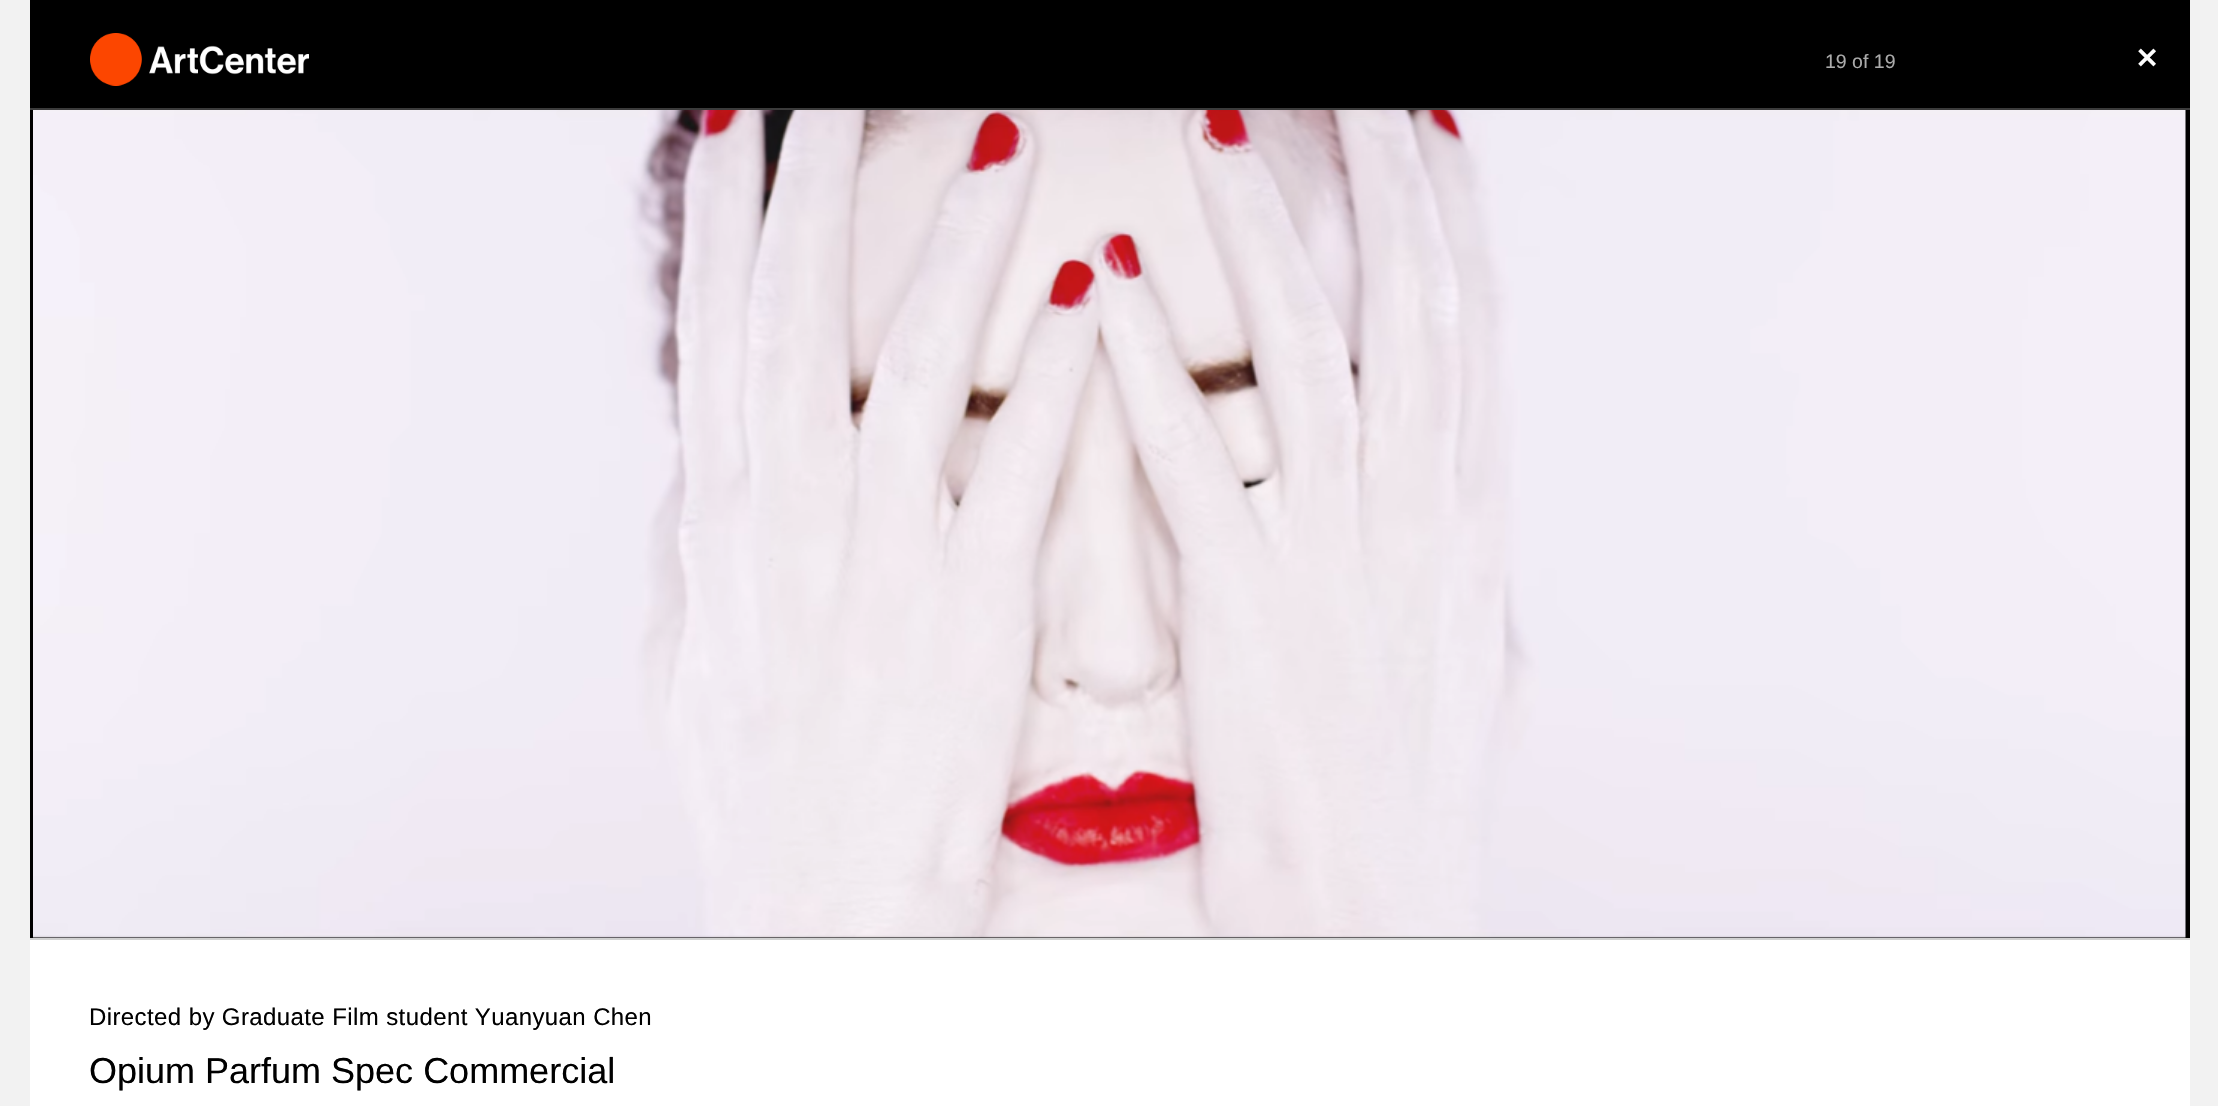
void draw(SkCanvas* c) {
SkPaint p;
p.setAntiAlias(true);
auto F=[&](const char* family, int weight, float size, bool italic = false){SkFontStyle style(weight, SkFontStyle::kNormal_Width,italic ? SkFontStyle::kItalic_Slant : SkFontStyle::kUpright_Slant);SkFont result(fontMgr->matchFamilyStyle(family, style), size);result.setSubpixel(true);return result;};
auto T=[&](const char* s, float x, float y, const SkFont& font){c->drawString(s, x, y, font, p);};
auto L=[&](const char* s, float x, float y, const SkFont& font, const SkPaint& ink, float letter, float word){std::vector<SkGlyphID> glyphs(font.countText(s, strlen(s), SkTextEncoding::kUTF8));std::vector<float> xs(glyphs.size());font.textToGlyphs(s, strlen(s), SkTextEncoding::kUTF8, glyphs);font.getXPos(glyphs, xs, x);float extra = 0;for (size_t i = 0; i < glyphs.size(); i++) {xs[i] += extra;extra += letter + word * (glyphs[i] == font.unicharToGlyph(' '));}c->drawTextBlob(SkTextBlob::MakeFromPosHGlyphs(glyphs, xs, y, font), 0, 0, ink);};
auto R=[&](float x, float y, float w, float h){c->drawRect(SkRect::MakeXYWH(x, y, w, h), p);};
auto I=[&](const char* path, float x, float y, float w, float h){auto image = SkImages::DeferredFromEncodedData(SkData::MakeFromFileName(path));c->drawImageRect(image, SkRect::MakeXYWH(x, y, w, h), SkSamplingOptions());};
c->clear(0xfff2f2f2);
p.setColor(0xff000000);
R(30,110,2160,828);
R(30,0,2160,108);
p.setColor(0xff3b3b3b);
R(30,108,2160,2);
I("1.png",90,33,219,53);
auto f1 = F("Liberation Sans",400,19.5);
p.setColor(0xffababab);
T("19 of 19",1825,68,f1);
auto f2 = F("DejaVu Sans",700,28);
p.setColor(0xffffffff);
T("✕",2135,68,f2);
p.setColor(0xffd1d1d1);
R(30,938,2160,2);
I("2.png",33,110,2153,828);
p.setColor(0xffffffff);
R(30,940,2160,166);
auto f3 = F("Liberation Sans",400,24);
p.setColor(0xff000000);
L("Directed by Graduate Film student Yuanyuan Chen",89,1025,f3,p,.4,0);
auto f4 = F("Liberation Sans",400,36);
T("Opium Parfum Spec Commercial",89,1083,f4);
}
